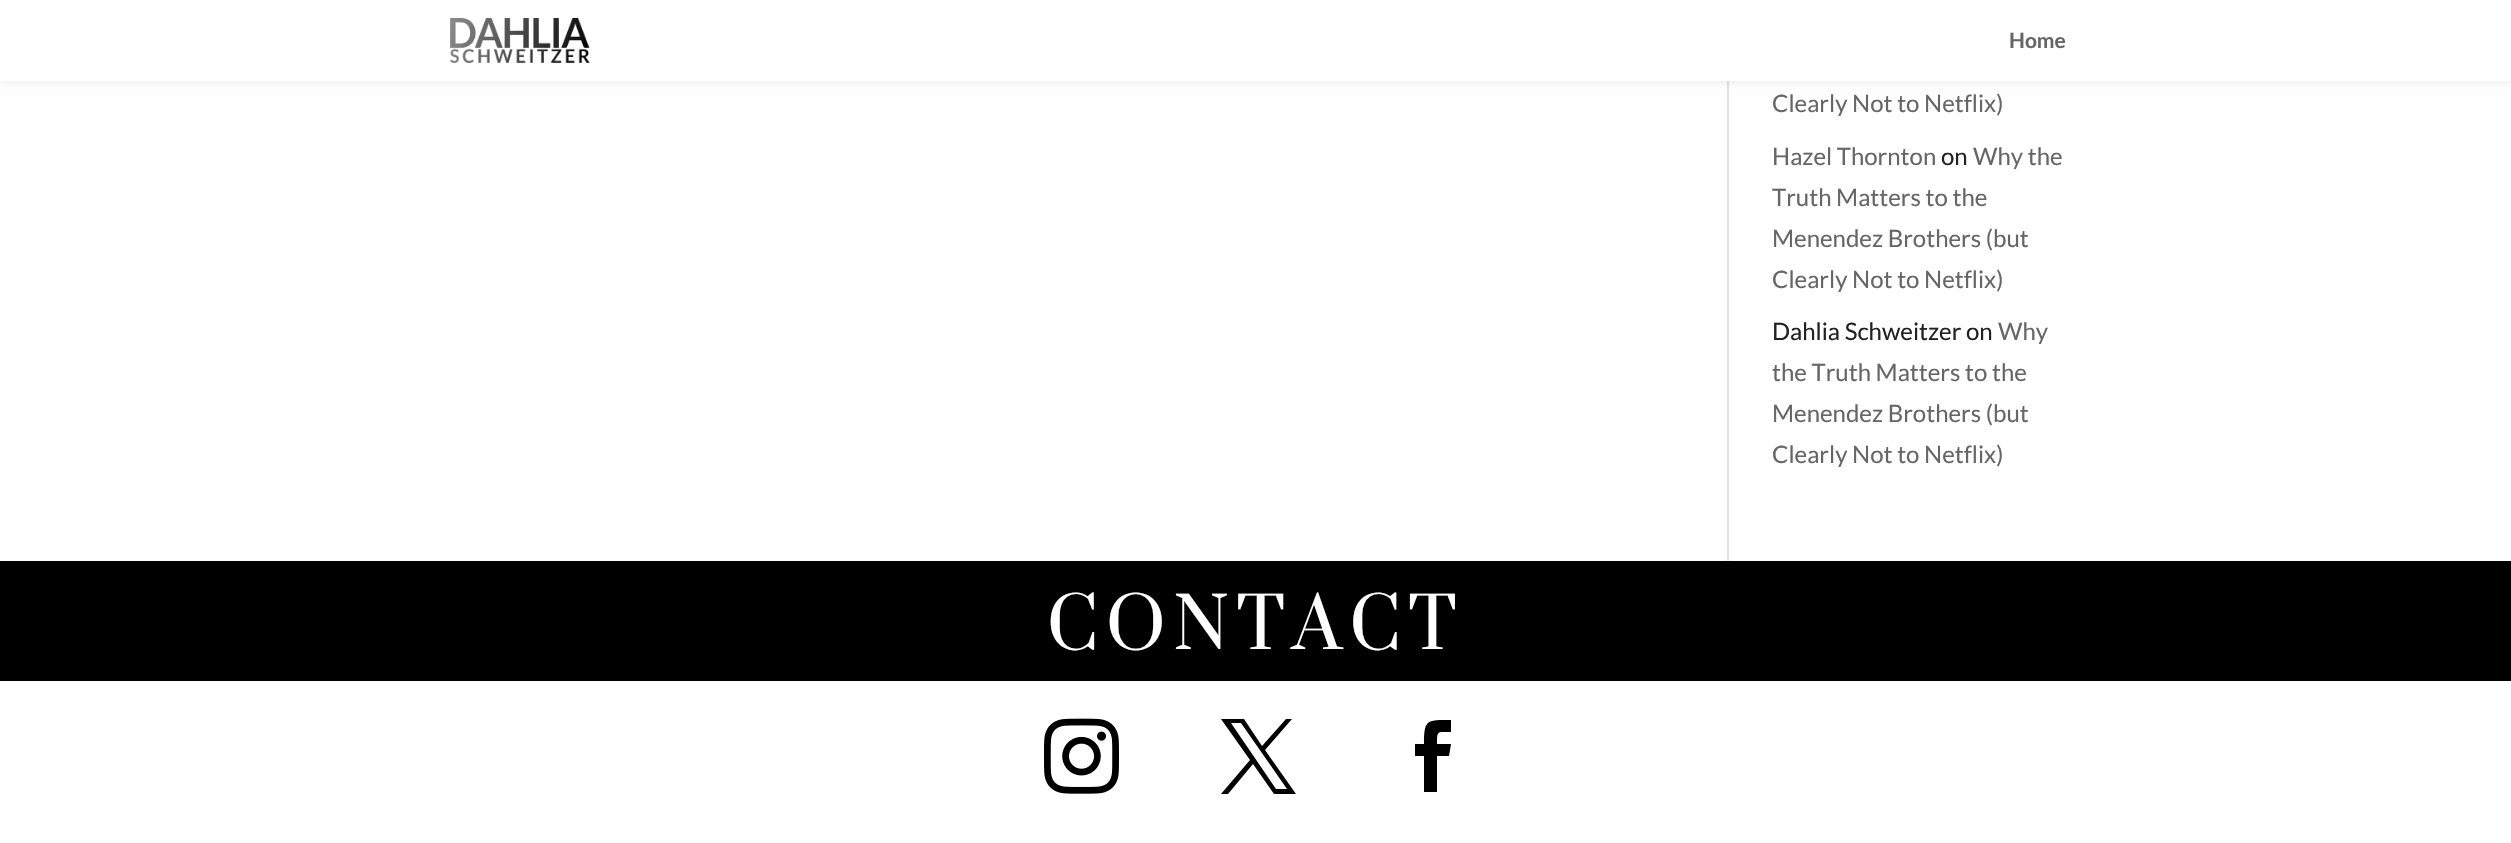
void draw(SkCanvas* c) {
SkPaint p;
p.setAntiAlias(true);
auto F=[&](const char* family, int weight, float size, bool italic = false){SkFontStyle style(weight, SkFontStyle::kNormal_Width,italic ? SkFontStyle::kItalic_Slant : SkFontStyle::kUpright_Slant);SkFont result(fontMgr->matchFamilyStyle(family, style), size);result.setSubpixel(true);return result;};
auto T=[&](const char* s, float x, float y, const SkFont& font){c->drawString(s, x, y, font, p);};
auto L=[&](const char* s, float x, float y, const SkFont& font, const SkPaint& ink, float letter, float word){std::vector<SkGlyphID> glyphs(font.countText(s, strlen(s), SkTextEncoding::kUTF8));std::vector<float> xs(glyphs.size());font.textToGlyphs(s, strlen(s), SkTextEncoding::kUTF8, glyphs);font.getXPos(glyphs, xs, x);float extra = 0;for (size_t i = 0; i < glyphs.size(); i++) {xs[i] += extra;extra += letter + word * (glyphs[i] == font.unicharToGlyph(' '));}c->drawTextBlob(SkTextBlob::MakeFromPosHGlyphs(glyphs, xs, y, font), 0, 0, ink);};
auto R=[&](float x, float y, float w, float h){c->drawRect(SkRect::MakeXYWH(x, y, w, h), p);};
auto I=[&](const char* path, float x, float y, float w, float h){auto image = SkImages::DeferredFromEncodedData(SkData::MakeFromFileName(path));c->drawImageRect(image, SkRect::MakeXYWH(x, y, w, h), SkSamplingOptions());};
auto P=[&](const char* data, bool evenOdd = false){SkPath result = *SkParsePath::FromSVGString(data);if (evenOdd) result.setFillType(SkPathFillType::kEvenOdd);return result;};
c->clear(0xffffffff);
p.setColor(0xffe2e2e2);
R(1727,81,2,480);
p.setColor(0x1a000000);
p.setMaskFilter(SkMaskFilter::MakeBlur(kNormal_SkBlurStyle, 5));
c->drawRect(SkRect::MakeXYWH(0,0,2511,81),p);
p.setMaskFilter(nullptr);
p.setColor(0xffffffff);
R(0,0,2511,81);
I("1.png",450,18,140,45);
auto f1 = F("Lato",700,21);
p.setColor(0xff666666);
T("Home",2009,48,f1);
auto f2 = F("Lato",400,24);
T("Clearly Not to Netflix)",1772,112,f2);
T("Hazel Thornton",1772,165,f2);
p.setColor(0xff222222);
T("on",1941,165,f2);
p.setColor(0xff666666);
T("Why the",1973,165,f2);
T("Truth Matters to the",1772,206,f2);
T("Menendez Brothers (but",1772,247,f2);
T("Clearly Not to Netflix)",1772,288,f2);
p.setColor(0xff222222);
T("Dahlia Schweitzer on",1772,340,f2);
p.setColor(0xff666666);
T("Why",1998,340,f2);
T("the Truth Matters to the",1772,381,f2);
T("Menendez Brothers (but",1772,422,f2);
T("Clearly Not to Netflix)",1772,463,f2);
p.setColor(0xff000000);
R(0,561,2511,120);
auto f3 = F("Prata",400,69);
p.setColor(0xffffffff);
L("CONTACT",1047,649,f3,p,7.5,0);
I("2.png",1044,718,75,76);
p.setColor(0xff000000);
c->drawPath(P("M1221 719l29 41l-29 34h7l25-30l21 30h22l-31-44l27-31h-6l-24 27l-18-27zm10 4h10l46 66h-11z"),p);
c->drawPath(P("M1424 792h13v-36h12l2-12h-14c0-14 0-12 14-12v-12c-24 0-27-1-27 24h-9v12h9z"),p);
}
